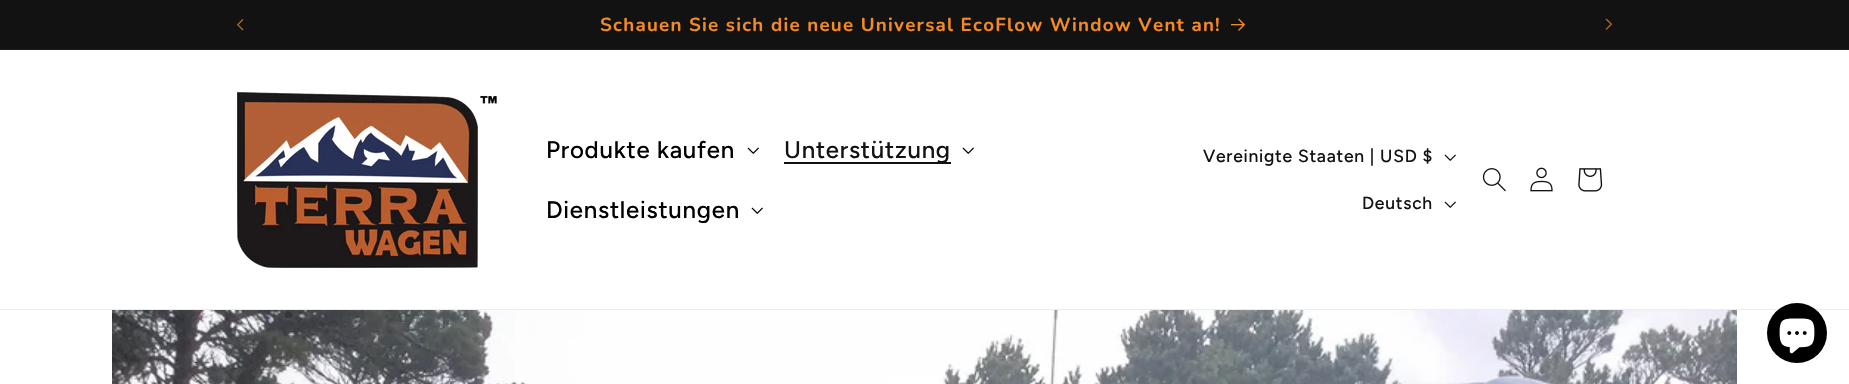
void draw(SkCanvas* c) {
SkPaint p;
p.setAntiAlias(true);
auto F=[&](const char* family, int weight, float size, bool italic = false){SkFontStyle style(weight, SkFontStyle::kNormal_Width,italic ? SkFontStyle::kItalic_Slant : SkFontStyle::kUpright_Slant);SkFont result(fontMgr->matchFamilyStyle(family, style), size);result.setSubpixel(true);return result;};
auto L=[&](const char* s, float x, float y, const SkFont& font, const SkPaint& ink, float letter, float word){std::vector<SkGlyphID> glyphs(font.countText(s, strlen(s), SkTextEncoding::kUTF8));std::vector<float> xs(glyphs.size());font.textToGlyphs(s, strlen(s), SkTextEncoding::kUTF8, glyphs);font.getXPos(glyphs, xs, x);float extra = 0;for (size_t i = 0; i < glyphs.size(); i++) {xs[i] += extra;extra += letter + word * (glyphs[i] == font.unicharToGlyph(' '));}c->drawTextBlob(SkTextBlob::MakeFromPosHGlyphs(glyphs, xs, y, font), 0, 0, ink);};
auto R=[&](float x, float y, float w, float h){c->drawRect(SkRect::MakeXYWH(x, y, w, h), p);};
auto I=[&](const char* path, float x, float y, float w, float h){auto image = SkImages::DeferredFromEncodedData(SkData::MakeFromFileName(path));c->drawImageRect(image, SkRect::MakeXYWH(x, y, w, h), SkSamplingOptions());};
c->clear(0xffffffff);
p.setColor(0xff121212);
R(0,0,1849,49);
p.setColor(0xff241c13);
R(0,49,1849,1);
I("1.png",237,19,7,12);
auto f1 = F("Nunito",700,18.75);
p.setColor(0xfff48a23);
L("Schauen Sie sich die neue Universal EcoFlow Window Vent an!",600,31,f1,p,1.25,0);
I("2.png",1231,18,14,13);
I("3.png",1605,18,7,12);
p.setColor(0xffececec);
R(0,309,1849,1);
I("4.png",237,92,260,176);
auto f2 = F("Figtree",500,24);
p.setColor(0xff000000);
L("Produkte kaufen",546,158,f2,p,.75,0);
I("5.png",747,147,12,7);
p.setColor(0xff121212);
R(784,162,167,2);
L("Unterstützung",784,158,f2,p,.75,0);
I("5.png",962,147,12,7);
p.setColor(0xff000000);
L("Dienstleistungen",546,218,f2,p,.75,0);
I("5.png",751,207,12,7);
auto f3 = F("Figtree",500,17.5);
p.setColor(0xff121212);
L("Vereinigte Staaten | USD $",1203,162,f3,p,.75,0);
I("6.png",1444,154,12,7);
L("Deutsch",1362,209,f3,p,.75,0);
I("6.png",1444,201,12,7);
I("7.png",1482,168,24,24);
I("8.png",1530,167,23,25);
I("9.png",1578,168,25,24);
I("10.png",112,310,1625,74);
p.setColor(0xff000000);
c->drawCircle(1797,333,30,p);
I("11.png",1779,318,36,36);
}
